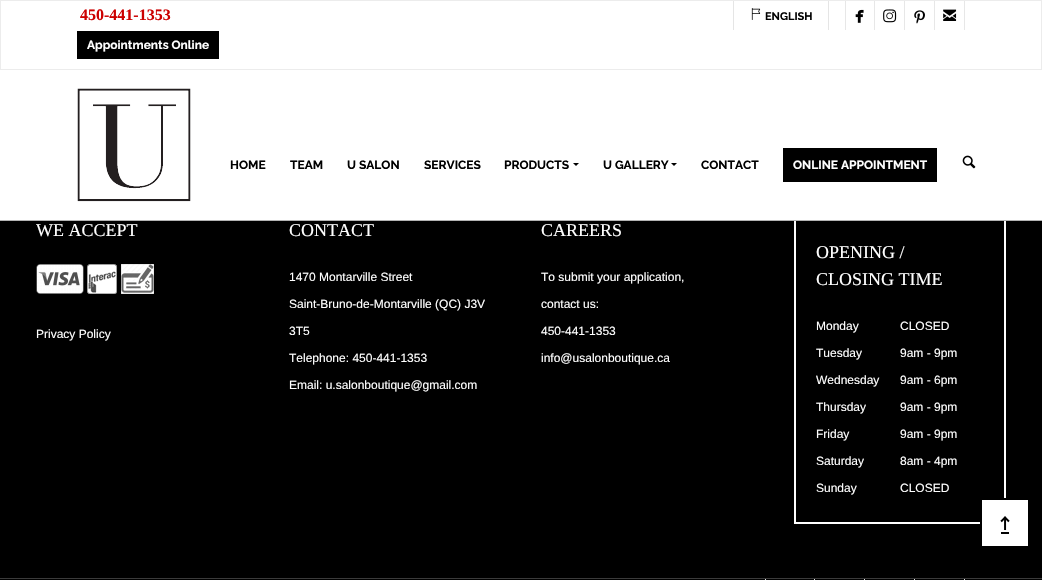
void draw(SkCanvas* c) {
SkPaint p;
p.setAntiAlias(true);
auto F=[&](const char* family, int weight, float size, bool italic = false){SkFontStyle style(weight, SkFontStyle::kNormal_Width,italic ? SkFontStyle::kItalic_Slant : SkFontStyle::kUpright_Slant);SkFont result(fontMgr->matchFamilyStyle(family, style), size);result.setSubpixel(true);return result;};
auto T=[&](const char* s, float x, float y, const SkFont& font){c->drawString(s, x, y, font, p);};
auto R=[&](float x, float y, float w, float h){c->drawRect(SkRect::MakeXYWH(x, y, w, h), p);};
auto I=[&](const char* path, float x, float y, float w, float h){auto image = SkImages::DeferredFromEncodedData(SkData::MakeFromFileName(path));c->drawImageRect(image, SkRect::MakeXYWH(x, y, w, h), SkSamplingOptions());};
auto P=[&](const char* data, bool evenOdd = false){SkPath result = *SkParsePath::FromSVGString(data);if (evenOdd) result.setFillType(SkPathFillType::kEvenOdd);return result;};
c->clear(0xff000000);
p.setStroke(true);
p.setStrokeWidth(2);
p.setColor(0xffffffff);
c->drawRect(SkRect::MakeXYWH(795,218,210,305),p);
p.setStroke(false);
p.setColor(0x0d000000);
p.setMaskFilter(SkMaskFilter::MakeBlur(kNormal_SkBlurStyle, 5));
c->drawRect(SkRect::MakeXYWH(0,2,1042,221),p);
p.setMaskFilter(nullptr);
p.setColor(0xffffffff);
R(0,1,1042,219);
p.setColor(0xffb3b3b3);
R(0,220,1042,1);
p.setStroke(true);
p.setStrokeWidth(1);
p.setColor(0xffececec);
c->drawRect(SkRect::MakeXYWH(.5,.5,1041,69),p);
auto f1 = F("Liberation Serif",700,16);
p.setStroke(false);
p.setColor(0xffcc0000);
T("450-441-1353",80,20,f1);
p.setColor(0xffe5e5e5);
R(828,1,1,29);
R(733,1,1,29);
I("1.png",751,8,10,12);
auto f2 = F("Raleway",700,11);
p.setColor(0xff000000);
T("ENGLISH",765,20,f2);
p.setColor(0xffe7e7e7);
R(874,1,1,29);
R(845,1,1,29);
I("2.png",855,9,9,14);
R(904,1,1,29);
I("3.png",883,9,14,14);
R(934,1,1,29);
I("4.png",914,10,11,14);
R(964,1,1,29);
I("5.png",943,9,14,12);
p.setColor(0xff000000);
R(77,31,142,28);
auto f3 = F("Raleway",700,12);
p.setColor(0xffffffff);
T("Appointments Online",87,49,f3);
I("6.png",77,88,114,114);
p.setColor(0xff000000);
T("HOME",230,169,f3);
T("TEAM",290,169,f3);
T("U SALON",347,169,f3);
T("SERVICES",424,169,f3);
T("PRODUCTS",504,169,f3);
c->drawPath(P("M573 163h6l-3 3z"),p);
T("U GALLERY",603,169,f3);
c->drawPath(P("M671 163h6l-3 3z"),p);
T("CONTACT",701,169,f3);
R(783,148,154,34);
p.setColor(0xffffffff);
T("ONLINE APPOINTMENT",793,169,f3);
I("7.png",962,155,14,14);
auto f4 = F("Liberation Serif",400,18);
T("WE ACCEPT",36,236,f4);
I("8.png",36,264,48,30);
I("9.png",87,264,30,30);
I("10.png",121,264,33,30);
auto f5 = F("Liberation Sans",400,12);
T("Privacy Policy",36,338,f5);
T("CONTACT",289,236,f4);
T("1470 Montarville Street",289,281,f5);
T("Saint-Bruno-de-Montarville (QC) J3V",289,308,f5);
T("3T5",289,335,f5);
T("Telephone: 450-441-1353",289,362,f5);
T("Email: u.salonboutique@gmail.com",289,389,f5);
T("CAREERS",541,236,f4);
T("To submit your application,",541,281,f5);
T("contact us:",541,308,f5);
T("450-441-1353",541,335,f5);
T("info@usalonboutique.ca",541,362,f5);
T("OPENING /",816,258,f4);
T("CLOSING TIME",816,285,f4);
T("Monday",816,330,f5);
T("CLOSED",900,330,f5);
T("Tuesday",816,357,f5);
T("9am - 9pm",900,357,f5);
T("Wednesday",816,384,f5);
T("9am - 6pm",900,384,f5);
T("Thursday",816,411,f5);
T("9am - 9pm",900,411,f5);
T("Friday",816,438,f5);
T("9am - 9pm",900,438,f5);
T("Saturday",816,465,f5);
T("8am - 4pm",900,465,f5);
T("Sunday",816,492,f5);
T("CLOSED",900,492,f5);
p.setColor(0xff3b3b3b);
R(0,578,1042,1);
p.setColor(0xffe7e7e7);
R(814,579,1,1);
R(765,579,1,1);
R(864,579,1,1);
R(914,579,1,1);
R(964,579,1,1);
p.setColor(0xffffffff);
R(982,500,46,46);
I("11.png",980,498,50,50);
}
